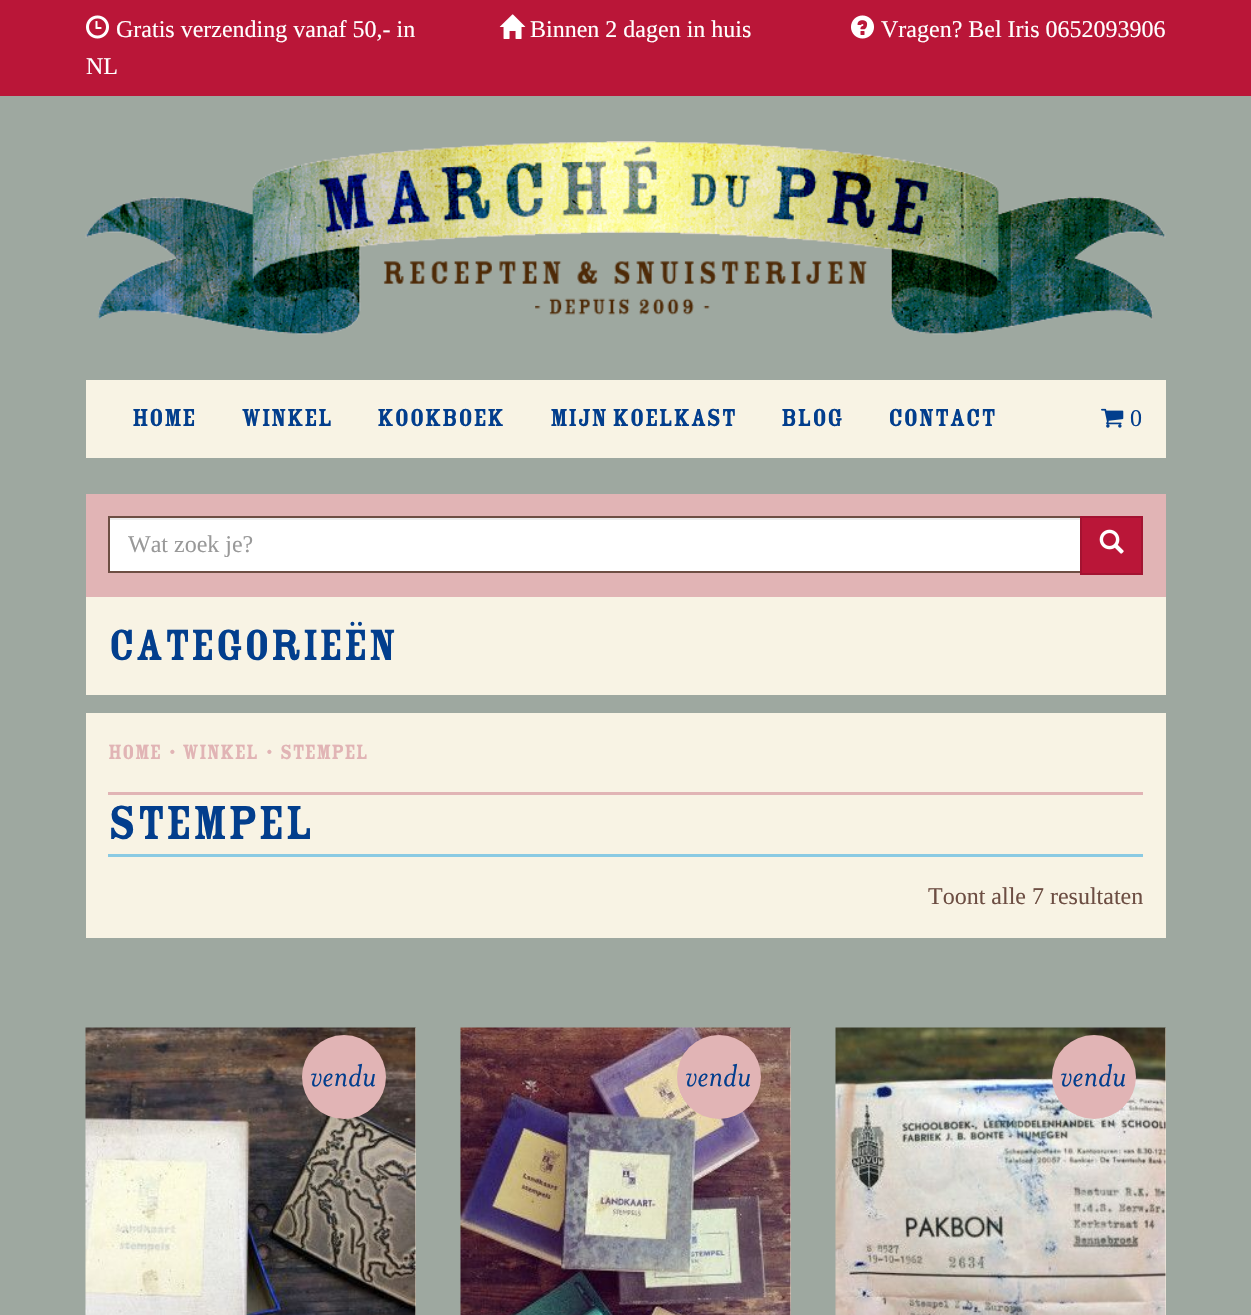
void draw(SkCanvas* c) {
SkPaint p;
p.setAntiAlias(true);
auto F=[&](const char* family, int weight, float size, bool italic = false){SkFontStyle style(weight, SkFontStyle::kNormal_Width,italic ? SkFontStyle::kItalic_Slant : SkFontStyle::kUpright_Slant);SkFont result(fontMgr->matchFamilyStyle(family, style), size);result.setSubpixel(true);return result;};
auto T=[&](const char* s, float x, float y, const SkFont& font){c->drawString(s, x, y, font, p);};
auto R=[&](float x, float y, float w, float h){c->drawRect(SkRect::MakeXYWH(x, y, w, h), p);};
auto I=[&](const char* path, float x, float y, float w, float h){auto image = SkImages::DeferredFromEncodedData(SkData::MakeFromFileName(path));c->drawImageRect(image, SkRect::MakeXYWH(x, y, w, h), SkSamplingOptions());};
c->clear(0xff9ea8a0);
p.setColor(0xffba1638);
R(0,0,1251,96);
I("1.png",86,15,23,24);
auto f1 = F("Liberation Serif",400,24);
p.setColor(0xffffffff);
T("Gratis verzending vanaf 50,- in",116,37,f1);
T("NL",86,74,f1);
I("2.png",499,14,27,25);
T("Binnen 2 dagen in huis",530,37,f1);
I("3.png",851,15,23,24);
T("Vragen? Bel Iris 0652093906",881,37,f1);
I("4.png",85,141,1081,194);
p.setColor(0xfff8f3e4);
R(86,380,1080,78);
auto f2 = F("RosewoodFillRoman",400,27);
p.setColor(0xff023e8d);
T("HOME",132,426,f2);
T("WINKEL",241,426,f2);
T("KOOKBOEK",377,426,f2);
T("MIJN KOELKAST",550,426,f2);
T("BLOG",781,426,f2);
T("CONTACT",888,426,f2);
I("5.png",1101,408,23,20);
T("0",1130,426,f1);
p.setColor(0xffe1b4b5);
R(86,494,1080,103);
p.setColor(0xffffffff);
R(110,520,970,51);
p.setColor(0xffececec);
R(110,518,970,2);
p.setStroke(true);
p.setStrokeWidth(2);
p.setColor(0xff6d4e43);
c->drawRect(SkRect::MakeXYWH(109,517,972,55),p);
p.setStroke(false);
p.setColor(0xff999999);
T("Wat zoek je?",128,552,f1);
p.setColor(0xffba1638);
c->drawRect(SkRect::MakeXYWH(1081,517,61,57),p);
p.setStroke(true);
p.setColor(0xffa31331);
c->drawRect(SkRect::MakeXYWH(1081,517,61,57),p);
I("6.png",1099,529,25,25);
p.setStroke(false);
p.setColor(0xfff8f3e4);
R(86,597,1080,98);
auto f3 = F("RosewoodFillRoman",400,48);
p.setColor(0xff023e8d);
T("Categorieën",108,660,f3);
p.setColor(0xfff8f3e4);
R(86,713,1080,225);
auto f4 = F("RosewoodFillRoman",400,22.5);
p.setColor(0xffe1b4b5);
T("Home",108,759,f4);
T("•",169,759,f4);
T("Winkel",182,759,f4);
T("•",266,759,f4);
T("Stempel",280,759,f4);
R(108,792,1035,3);
p.setColor(0xff8acae3);
R(108,854,1035,3);
auto f5 = F("RosewoodFillRoman",400,52.5);
p.setColor(0xff023e8d);
T("Stempel",108,839,f5);
p.setColor(0xff6d4e43);
T("Toont alle 7 resultaten",928,904,f1);
p.setColor(0xfff8f3e4);
R(415,1028,1,287);
I("7.png",85,1027,331,288);
p.setColor(0xffe1b4b5);
c->drawCircle(344,1077,42,p);
auto f6 = F("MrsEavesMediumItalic",500,36,true);
p.setColor(0xff023e8d);
T("vendu",310,1086,f6);
p.setColor(0xfff8f3e4);
R(790,1028,1,287);
I("8.png",460,1027,331,288);
p.setColor(0xffe1b4b5);
c->drawCircle(719,1077,42,p);
p.setColor(0xff023e8d);
T("vendu",685,1086,f6);
p.setColor(0xfff8f3e4);
R(1165,1028,1,287);
I("9.png",835,1027,331,288);
p.setColor(0xffe1b4b5);
c->drawCircle(1094,1077,42,p);
p.setColor(0xff023e8d);
T("vendu",1060,1086,f6);
}
